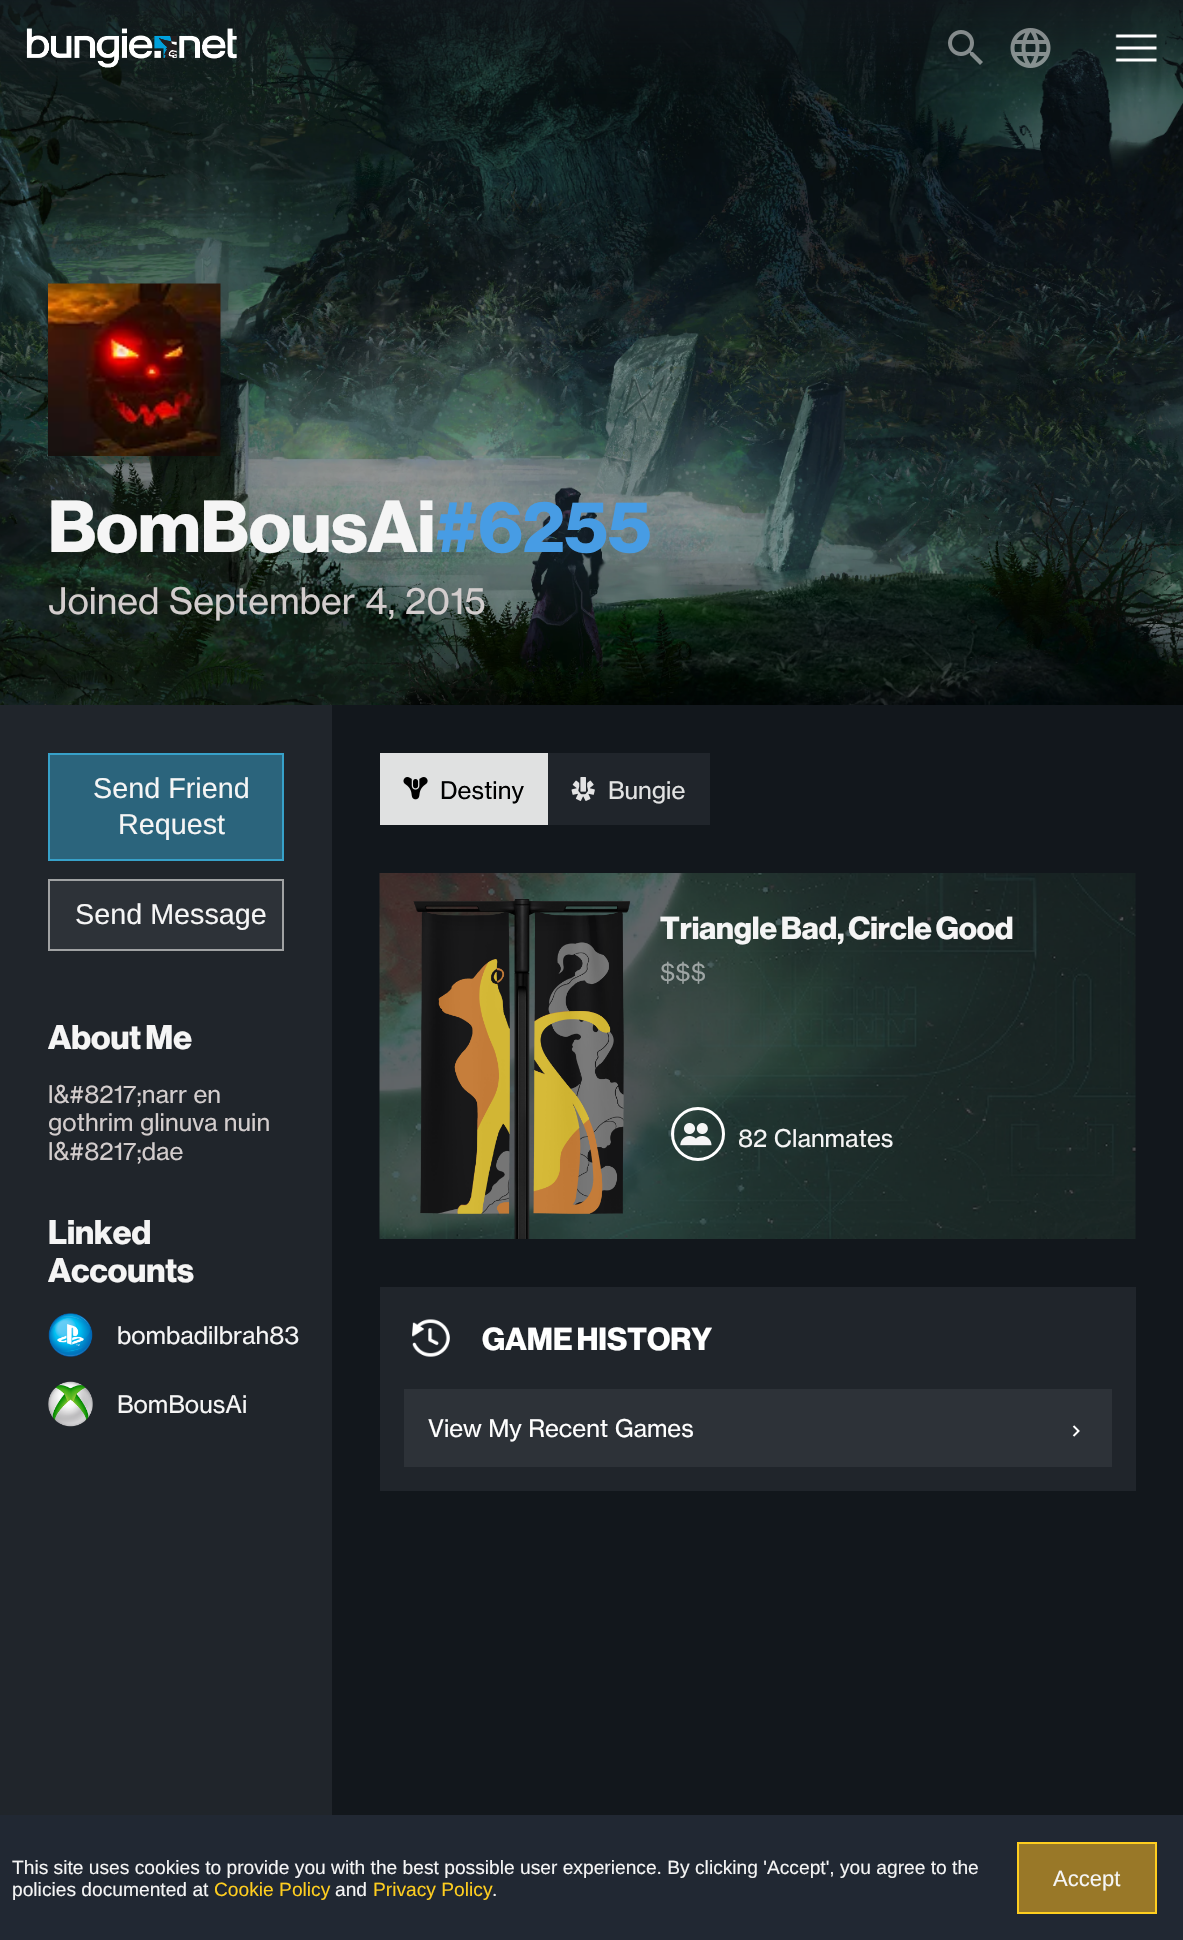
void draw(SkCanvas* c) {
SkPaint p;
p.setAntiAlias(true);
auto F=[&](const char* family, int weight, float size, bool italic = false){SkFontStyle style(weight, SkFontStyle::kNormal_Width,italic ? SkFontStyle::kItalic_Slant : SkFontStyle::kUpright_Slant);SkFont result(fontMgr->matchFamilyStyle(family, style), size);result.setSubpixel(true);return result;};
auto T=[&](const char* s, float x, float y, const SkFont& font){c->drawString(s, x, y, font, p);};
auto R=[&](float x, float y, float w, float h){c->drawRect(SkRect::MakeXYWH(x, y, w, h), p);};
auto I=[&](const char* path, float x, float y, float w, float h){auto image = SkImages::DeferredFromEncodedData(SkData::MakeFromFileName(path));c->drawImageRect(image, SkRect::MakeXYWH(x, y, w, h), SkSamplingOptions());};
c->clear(0xff12171c);
I("5.png",0,0,1183,705);
I("1.png",26,28,211,40);
I("2.png",948,30,35,35);
I("3.png",1010,28,41,40);
I("4.png",1115,34,42,28);
p.setColor(0x47000000);
p.setMaskFilter(SkMaskFilter::MakeBlur(kNormal_SkBlurStyle, 11));
c->drawRect(SkRect::MakeXYWH(56,291,172,173),p);
p.setMaskFilter(nullptr);
I("6.png",48,283,173,173);
auto f1 = F("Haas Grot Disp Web",700,72);
p.setColor(0xfff5f5f5);
T("BomBousAi",48,552,f1);
p.setColor(0xff479ce4);
T("#6255",435,552,f1);
auto f2 = F("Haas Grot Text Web",400,36);
p.setColor(0xffd3cdcd);
T("Joined September 4, 2015",48,614,f2);
p.setColor(0xff20252b);
R(0,705,332,1110);
p.setColor(0xff2b647c);
R(50,755,232,104);
p.setStroke(true);
p.setStrokeWidth(2);
p.setColor(0xff37a1c9);
c->drawRect(SkRect::MakeXYWH(49,754,234,106),p);
auto f3 = F("Liberation Sans",400,28.75);
p.setStroke(false);
p.setColor(0xfff5f5f5);
T("Send Friend",93,798,f3);
T("Request",118,834,f3);
p.setColor(0xff2d3238);
R(50,881,232,68);
p.setStroke(true);
p.setColor(0xffa0a2a3);
c->drawRect(SkRect::MakeXYWH(49,880,234,70),p);
p.setStroke(false);
p.setColor(0xfff5f5f5);
T("Send Message",75,924,f3);
auto f4 = F("Haas Grot Disp Web",700,33.5);
T("About Me",48,1049,f4);
auto f5 = F("Haas Grot Text Web",400,24);
p.setColor(0xffd3cdcd);
T("l&#8217;narr en",48,1103,f5);
T("gothrim glinuva nuin",48,1131,f5);
T("l&#8217;dae",48,1160,f5);
p.setColor(0xfff5f5f5);
T("Linked",48,1244,f4);
T("Accounts",48,1282,f4);
I("7.png",48,1313,45,44);
T("bombadilbrah83",117,1344,f5);
I("8.png",48,1381,45,46);
T("BomBousAi",117,1413,f5);
p.setColor(0xffe0e1e1);
R(380,753,168,72);
I("9.png",403,777,25,23);
p.setColor(0xff000000);
T("Destiny",440,799,f5);
p.setColor(0xff20252b);
R(548,753,162,72);
I("10.png",571,777,24,24);
p.setColor(0xffe2e3e3);
T("Bungie",608,799,f5);
I("11.png",379,873,757,366);
I("12.png",413,899,218,340);
auto f6 = F("Haas Grot Disp Web",700,31.25);
p.setColor(0xfff5f5f5);
T("Triangle Bad, Circle Good",660,939,f6);
p.setColor(0xff9ea5a4);
T("$$$",660,981,f5);
p.setStroke(true);
p.setStrokeWidth(3);
p.setColor(0xffffffff);
c->drawCircle(698,1134,25.5,p);
I("13.png",680,1123,32,23);
p.setStroke(false);
p.setColor(0xfff5f5f5);
T("82 Clanmates",738,1147,f5);
p.setColor(0xff20252b);
R(380,1287,756,204);
I("14.png",412,1319,38,38);
p.setColor(0xffffffff);
T("GAME HISTORY",482,1350,f6);
p.setColor(0xff2d3238);
R(404,1389,708,78);
p.setColor(0xffffffff);
T("View My Recent Games",428,1437,f5);
I("15.png",1072,1425,8,12);
p.setColor(0xff212833);
R(0,1815,1183,125);
auto f7 = F("Liberation Sans",400,19.2);
p.setColor(0xfff5f5f5);
T("This site uses cookies to provide you with the best possible user experience. By clicking 'Accept', you agree to the",12,1874,f7);
T("policies documented at",12,1896,f7);
p.setColor(0xffffce1f);
T("Cookie Policy",214,1896,f7);
p.setColor(0xfff5f5f5);
T("and",335,1896,f7);
p.setColor(0xffffce1f);
T("Privacy Policy",373,1896,f7);
p.setColor(0xfff5f5f5);
T(".",492,1896,f7);
p.setColor(0xff997828);
R(1019,1844,136,68);
p.setStroke(true);
p.setStrokeWidth(2);
p.setColor(0xffffce1f);
c->drawRect(SkRect::MakeXYWH(1018,1843,138,70),p);
auto f8 = F("Liberation Sans",400,22);
p.setStroke(false);
p.setColor(0xfff5f5f5);
T("Accept",1053,1886,f8);
}
